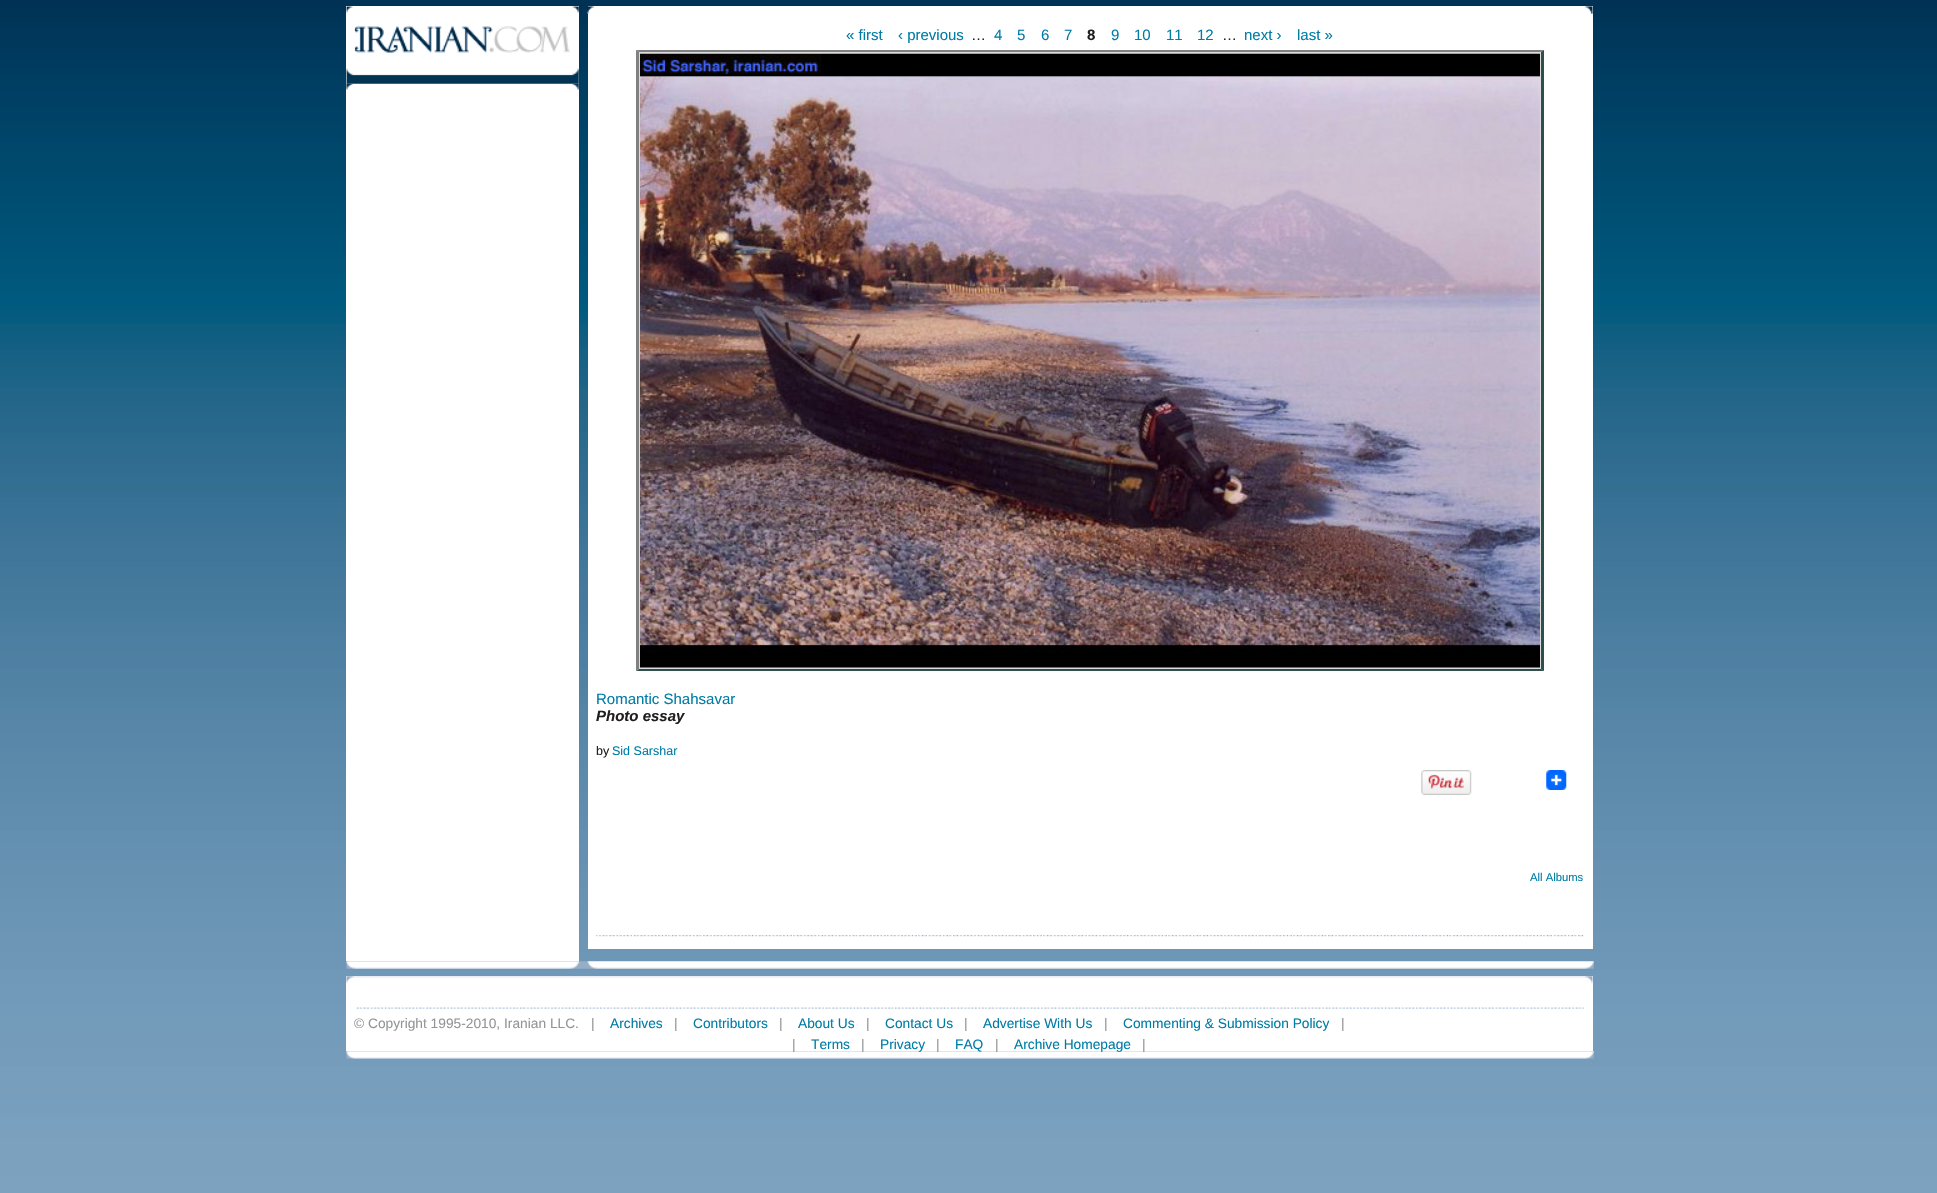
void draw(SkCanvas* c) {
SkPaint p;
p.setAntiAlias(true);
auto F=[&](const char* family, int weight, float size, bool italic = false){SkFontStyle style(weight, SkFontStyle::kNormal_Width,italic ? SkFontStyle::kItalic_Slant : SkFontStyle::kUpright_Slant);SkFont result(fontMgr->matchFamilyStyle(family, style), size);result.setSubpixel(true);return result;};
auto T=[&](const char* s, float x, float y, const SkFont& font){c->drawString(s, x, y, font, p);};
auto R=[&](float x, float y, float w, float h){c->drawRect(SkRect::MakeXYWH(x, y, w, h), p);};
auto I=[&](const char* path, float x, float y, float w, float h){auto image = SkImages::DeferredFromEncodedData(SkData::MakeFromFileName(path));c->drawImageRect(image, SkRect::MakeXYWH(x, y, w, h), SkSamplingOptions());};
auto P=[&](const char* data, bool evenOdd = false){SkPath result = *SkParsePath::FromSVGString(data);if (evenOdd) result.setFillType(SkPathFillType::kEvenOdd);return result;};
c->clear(0xffffffff);
I("1.png",0,0,1937,1193);
p.setColor(0xffffffff);
R(346,6,233,955);
I("3.png",346,83,233,7);
I("2.png",346,6,233,78);
R(588,6,1005,943);
I("4.png",587,6,1006,8);
I("5.png",596,935,988,2);
auto f1 = F("Liberation Sans",400,15);
p.setColor(0xff007da6);
T("« first",846,40,f1);
T("‹ previous",898,40,f1);
p.setColor(0xff221e1f);
T("…",971,40,f1);
p.setColor(0xff007da6);
T("4",994,40,f1);
T("5",1017,40,f1);
T("6",1041,40,f1);
T("7",1064,40,f1);
auto f2 = F("Liberation Sans",700,15);
p.setColor(0xff221e1f);
T("8",1087,40,f2);
p.setColor(0xff007da6);
T("9",1111,40,f1);
T("10",1134,40,f1);
T("11",1166,40,f1);
T("12",1197,40,f1);
p.setColor(0xff221e1f);
T("…",1222,40,f1);
p.setColor(0xff007da6);
T("next ›",1244,40,f1);
T("last »",1297,40,f1);
p.setColor(0xffdcdcdc);
R(636,50,908,621);
p.setColor(0xff808080);
c->drawPath(P("M636 50h908l-3 2h-902z"),p);
p.setColor(0xff2f4f4f);
c->drawPath(P("M1544 50v621l-3-2v-617z"),p);
c->drawPath(P("M1544 671h-908l3-2h902z"),p);
p.setColor(0xff808080);
c->drawPath(P("M636 671v-621l3 2v617z"),p);
I("6.png",640,53,900,615);
p.setColor(0xff007da6);
T("Romantic Shahsavar",596,704,f1);
auto f3 = F("Liberation Sans",700,15,true);
p.setColor(0xff221e1f);
T("Photo essay",596,721,f3);
auto f4 = F("Liberation Sans",400,12.5);
T("by",596,755,f4);
p.setColor(0xff007da6);
T("Sid Sarshar",612,755,f4);
I("7.png",1421,770,51,25);
I("8.png",1546,770,21,20);
auto f5 = F("Liberation Sans",400,11.25);
T("All Albums",1530,881,f5);
I("9.png",346,961,1248,8);
p.setColor(0xffffffff);
R(346,976,1247,75);
I("10.png",346,976,1247,8);
I("11.png",355,1007,1229,2);
auto f6 = F("Liberation Sans",400,13.75);
p.setColor(0xff939698);
T("© Copyright 1995-2010, Iranian LLC.",354,1028,f6);
T("|",591,1028,f6);
p.setColor(0xff007da6);
T("Archives",610,1028,f6);
p.setColor(0xff939698);
T("|",674,1028,f6);
p.setColor(0xff007da6);
T("Contributors",693,1028,f6);
p.setColor(0xff939698);
T("|",779,1028,f6);
p.setColor(0xff007da6);
T("About Us",798,1028,f6);
p.setColor(0xff939698);
T("|",866,1028,f6);
p.setColor(0xff007da6);
T("Contact Us",885,1028,f6);
p.setColor(0xff939698);
T("|",964,1028,f6);
p.setColor(0xff007da6);
T("Advertise With Us",983,1028,f6);
p.setColor(0xff939698);
T("|",1104,1028,f6);
p.setColor(0xff007da6);
T("Commenting & Submission Policy",1123,1028,f6);
p.setColor(0xff939698);
T("|",1341,1028,f6);
I("12.png",346,1051,1248,8);
T("|",792,1049,f6);
p.setColor(0xff007da6);
T("Terms",811,1049,f6);
p.setColor(0xff939698);
T("|",861,1049,f6);
p.setColor(0xff007da6);
T("Privacy",880,1049,f6);
p.setColor(0xff939698);
T("|",936,1049,f6);
p.setColor(0xff007da6);
T("FAQ",955,1049,f6);
p.setColor(0xff939698);
T("|",995,1049,f6);
p.setColor(0xff007da6);
T("Archive Homepage",1014,1049,f6);
p.setColor(0xff939698);
T("|",1142,1049,f6);
}
